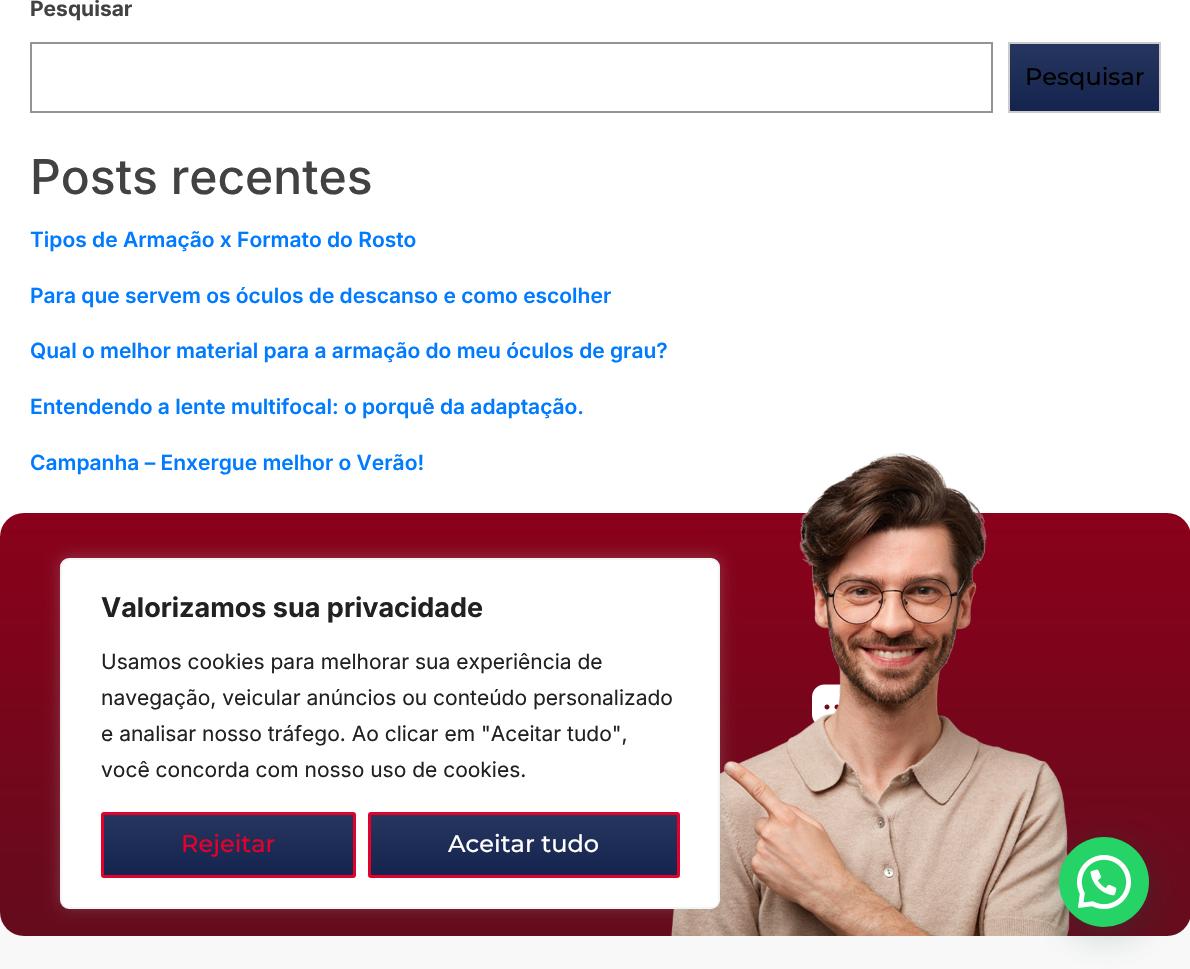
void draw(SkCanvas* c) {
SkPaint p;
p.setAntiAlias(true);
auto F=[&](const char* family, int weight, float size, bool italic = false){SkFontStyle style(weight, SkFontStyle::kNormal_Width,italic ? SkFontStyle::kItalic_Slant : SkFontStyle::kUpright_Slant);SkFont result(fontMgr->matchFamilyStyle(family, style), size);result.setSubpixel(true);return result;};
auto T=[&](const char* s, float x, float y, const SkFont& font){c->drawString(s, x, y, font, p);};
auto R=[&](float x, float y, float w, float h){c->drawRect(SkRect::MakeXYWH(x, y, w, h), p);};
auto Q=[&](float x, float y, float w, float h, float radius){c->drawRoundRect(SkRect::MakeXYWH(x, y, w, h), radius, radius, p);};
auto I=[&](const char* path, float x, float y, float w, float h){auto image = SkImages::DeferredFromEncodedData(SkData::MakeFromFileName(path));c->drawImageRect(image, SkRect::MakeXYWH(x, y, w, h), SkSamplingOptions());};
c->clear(0xffffffff);
auto f1 = F("Inter",700,21);
p.setColor(0xff424242);
T("Pesquisar",30,16,f1);
p.setStroke(true);
p.setStrokeWidth(2);
p.setColor(0xff949494);
c->drawRect(SkRect::MakeXYWH(31,43,961,69),p);
p.setStroke(false);
{
const SkColor colors[] = {0xff26365f,0xff14244e};
const float stops[] = {0,1};
const SkPoint ends[] = {{1085,43}, {1085,111}};
p.setShader(SkGradientShader::MakeLinear(ends, colors, stops, 2, SkTileMode::kClamp));
p.setAlpha(255);
}
R(1010,44,149,67);
p.setStroke(true);
p.setShader(nullptr);
p.setColor(0xffcccccc);
c->drawRect(SkRect::MakeXYWH(1009,43,151,69),p);
auto f2 = F("Montserrat",500,24);
p.setStroke(false);
p.setColor(0xff000000);
T("Pesquisar",1025,85,f2);
auto f3 = F("Inter",500,48);
p.setColor(0xff424242);
T("Posts recentes",30,194,f3);
auto f4 = F("Inter",600,21);
p.setColor(0xff007bff);
T("Tipos de Armação x Formato do Rosto",30,247,f4);
T("Para que servem os óculos de descanso e como escolher",30,303,f4);
T("Qual o melhor material para a armação do meu óculos de grau?",30,358,f4);
T("Entendendo a lente multifocal: o porquê da adaptação.",30,414,f4);
T("Campanha – Enxergue melhor o Verão!",30,470,f4);
p.setColor(0xfff8f8f8);
R(0,912,1190,57);
{
const SkColor colors[] = {0xff8a011b,0xff640b1c};
const float stops[] = {0,1};
const SkPoint ends[] = {{596,513}, {596,936}};
p.setShader(SkGradientShader::MakeLinear(ends, colors, stops, 2, SkTileMode::kClamp));
p.setAlpha(255);
}
Q(0,513,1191,423,24);
I("2.png",812,684,29,39);
I("1.png",671,453,399,483);
p.setShader(nullptr);
p.setColor(0x4dacabab);
p.setMaskFilter(SkMaskFilter::MakeBlur(kNormal_SkBlurStyle, 7.5));
c->drawRoundRect(SkRect::MakeXYWH(60,557,660,351),9,9,p);
p.setMaskFilter(nullptr);
p.setColor(0xffffffff);
c->drawRoundRect(SkRect::MakeXYWH(61,559,658,349),8,8,p);
p.setStroke(true);
p.setColor(0xfff4f4f4);
c->drawRoundRect(SkRect::MakeXYWH(61,559,658,349),8,8,p);
auto f5 = F("Inter",700,27);
p.setStroke(false);
p.setColor(0xff212121);
T("Valorizamos sua privacidade",101,617,f5);
auto f6 = F("Inter",400,21);
T("Usamos cookies para melhorar sua experiência de",101,669,f6);
T("navegação, veicular anúncios ou conteúdo personalizado",101,705,f6);
T("e analisar nosso tráfego. Ao clicar em \"Aceitar tudo\",",101,741,f6);
T("você concorda com nosso uso de cookies.",101,777,f6);
{
const SkColor colors[] = {0xff26365f,0xff14244e};
const float stops[] = {0,1};
const SkPoint ends[] = {{228,815}, {228,875}};
p.setShader(SkGradientShader::MakeLinear(ends, colors, stops, 2, SkTileMode::kClamp));
p.setAlpha(255);
}
R(104,815,249,60);
p.setStroke(true);
p.setStrokeWidth(3);
p.setShader(nullptr);
p.setColor(0xffe4002b);
c->drawRoundRect(SkRect::MakeXYWH(102.5,813.5,252,63),1.5,1.5,p);
p.setStroke(false);
T("Rejeitar",181,852,f2);
{
const SkColor colors[] = {0xff26365f,0xff14244e};
const float stops[] = {0,1};
const SkPoint ends[] = {{524,815}, {524,875}};
p.setShader(SkGradientShader::MakeLinear(ends, colors, stops, 2, SkTileMode::kClamp));
p.setAlpha(255);
}
R(371,815,306,60);
p.setStroke(true);
p.setShader(nullptr);
p.setColor(0xffe4002b);
c->drawRoundRect(SkRect::MakeXYWH(369.5,813.5,309,63),1.5,1.5,p);
p.setStroke(false);
p.setColor(0xffffffff);
T("Aceitar tudo",448,852,f2);
p.setColor(0x3d075e54);
p.setMaskFilter(SkMaskFilter::MakeBlur(kNormal_SkBlurStyle, 18));
c->drawRoundRect(SkRect::MakeXYWH(1061,846,90,90),45,45,p);
p.setMaskFilter(nullptr);
p.setColor(0xff25d366);
c->drawCircle(1104,882,45,p);
I("3.png",1077,855,54,54);
}
